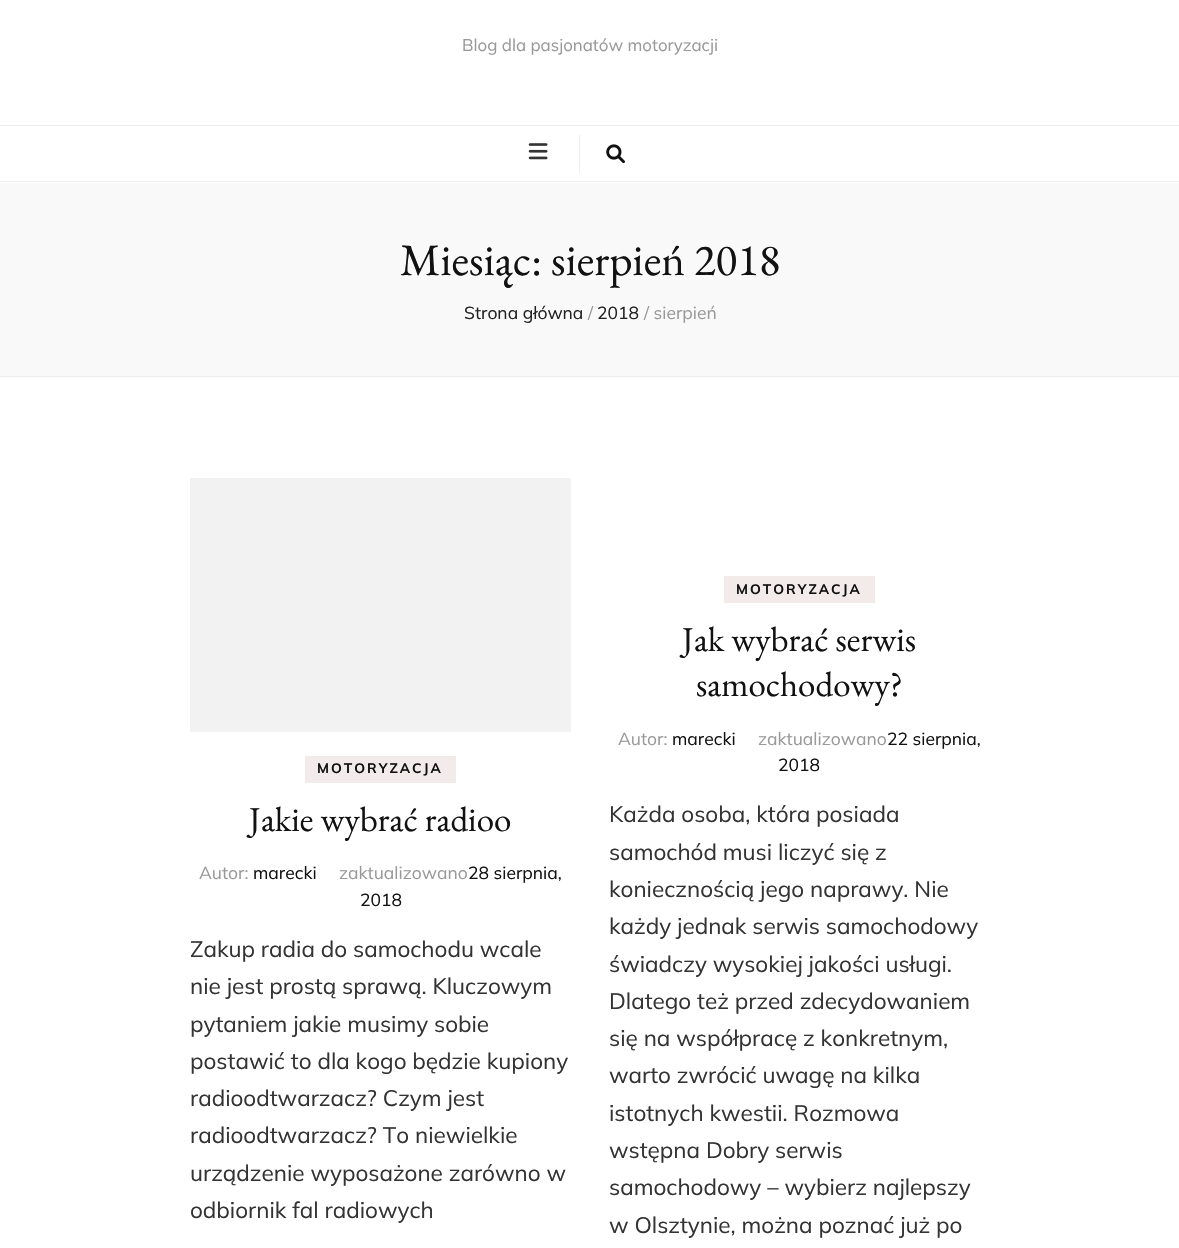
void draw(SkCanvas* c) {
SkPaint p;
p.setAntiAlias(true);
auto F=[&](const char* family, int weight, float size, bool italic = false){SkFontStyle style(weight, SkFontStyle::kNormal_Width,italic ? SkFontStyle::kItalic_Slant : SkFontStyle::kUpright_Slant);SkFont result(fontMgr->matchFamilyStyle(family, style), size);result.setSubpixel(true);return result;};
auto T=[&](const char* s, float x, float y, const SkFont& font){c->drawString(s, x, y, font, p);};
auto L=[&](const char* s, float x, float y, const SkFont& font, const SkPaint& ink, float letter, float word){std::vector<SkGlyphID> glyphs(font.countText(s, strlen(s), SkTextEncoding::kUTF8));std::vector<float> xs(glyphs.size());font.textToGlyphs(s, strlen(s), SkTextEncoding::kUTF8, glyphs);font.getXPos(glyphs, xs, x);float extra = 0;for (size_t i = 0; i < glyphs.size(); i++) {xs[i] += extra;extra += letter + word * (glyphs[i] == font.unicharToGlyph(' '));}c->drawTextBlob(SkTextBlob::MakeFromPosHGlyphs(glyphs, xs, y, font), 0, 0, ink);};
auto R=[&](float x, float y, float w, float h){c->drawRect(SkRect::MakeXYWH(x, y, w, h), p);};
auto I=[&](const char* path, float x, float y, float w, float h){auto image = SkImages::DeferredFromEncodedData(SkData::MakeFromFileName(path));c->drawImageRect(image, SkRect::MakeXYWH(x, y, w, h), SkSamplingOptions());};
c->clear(0xffffffff);
auto f1 = F("Mulish",400,16.9);
p.setColor(0xff999999);
T("Blog dla pasjonatów motoryzacji",462,51,f1);
p.setColor(0xffeeeeee);
R(0,125,1179,1);
R(0,181,1179,1);
I("1.png",528,143,20,17);
R(579,135,1,38);
I("2.png",606,144,19,20);
p.setColor(0xfff9f9f9);
R(0,183,1179,195);
p.setColor(0xffeeeeee);
R(0,376,1179,1);
auto f2 = F("EB Garamond",400,45);
p.setColor(0xff121212);
T("Miesiąc: sierpień 2018",400,275,f2);
auto f3 = F("Mulish",400,17.5);
p.setColor(0xff222222);
T("Strona główna",464,319,f3);
p.setColor(0xff999999);
T("/",588,319,f3);
p.setColor(0xff222222);
T("2018",597,319,f3);
p.setColor(0xff999999);
T("/ sierpień",644,319,f3);
p.setColor(0xfff2f2f2);
R(190,478,381,254);
p.setColor(0xfff3ebe9);
R(305,756,151,27);
auto f4 = F("Mulish",700,13.75);
p.setColor(0xff121212);
L("MOTORYZACJA",317,773,f4,p,2,0);
auto f5 = F("EB Garamond",400,35);
T("Jakie wybrać radioo",249,831,f5);
p.setColor(0xff999999);
T("Autor:",199,879,f3);
p.setColor(0xff121212);
T("marecki",253,879,f3);
p.setColor(0xff999999);
T("zaktualizowano",339,879,f3);
p.setColor(0xff121212);
T("28 sierpnia,",468,879,f3);
T("2018",360,906,f3);
auto f6 = F("Mulish",400,22.5);
p.setColor(0xff333333);
T("Zakup radia do samochodu wcale",190,957,f6);
T("nie jest prostą sprawą. Kluczowym",190,994,f6);
T("pytaniem jakie musimy sobie",190,1032,f6);
T("postawić to dla kogo będzie kupiony",190,1069,f6);
T("radioodtwarzacz? Czym jest",190,1106,f6);
T("radioodtwarzacz? To niewielkie",190,1143,f6);
T("urządzenie wyposażone zarówno w",190,1181,f6);
T("odbiornik fal radiowych",190,1218,f6);
p.setColor(0xfff3ebe9);
R(724,576,151,27);
p.setColor(0xff121212);
L("MOTORYZACJA",736,594,f4,p,2,0);
T("Jak wybrać serwis",682,651,f5);
T("samochodowy?",696,696,f5);
p.setColor(0xff999999);
T("Autor:",618,745,f3);
p.setColor(0xff121212);
T("marecki",672,745,f3);
p.setColor(0xff999999);
T("zaktualizowano",758,745,f3);
p.setColor(0xff121212);
T("22 sierpnia,",887,745,f3);
T("2018",778,771,f3);
p.setColor(0xff333333);
T("Każda osoba, która posiada",609,822,f6);
T("samochód musi liczyć się z",609,860,f6);
T("koniecznością jego naprawy. Nie",609,897,f6);
T("każdy jednak serwis samochodowy",609,934,f6);
T("świadczy wysokiej jakości usługi.",609,972,f6);
T("Dlatego też przed zdecydowaniem",609,1009,f6);
T("się na współpracę z konkretnym,",609,1046,f6);
T("warto zwrócić uwagę na kilka",609,1083,f6);
T("istotnych kwestii. Rozmowa",609,1121,f6);
T("wstępna Dobry serwis",609,1158,f6);
T("samochodowy – wybierz najlepszy",609,1195,f6);
T("w Olsztynie, można poznać już po",609,1233,f6);
}
